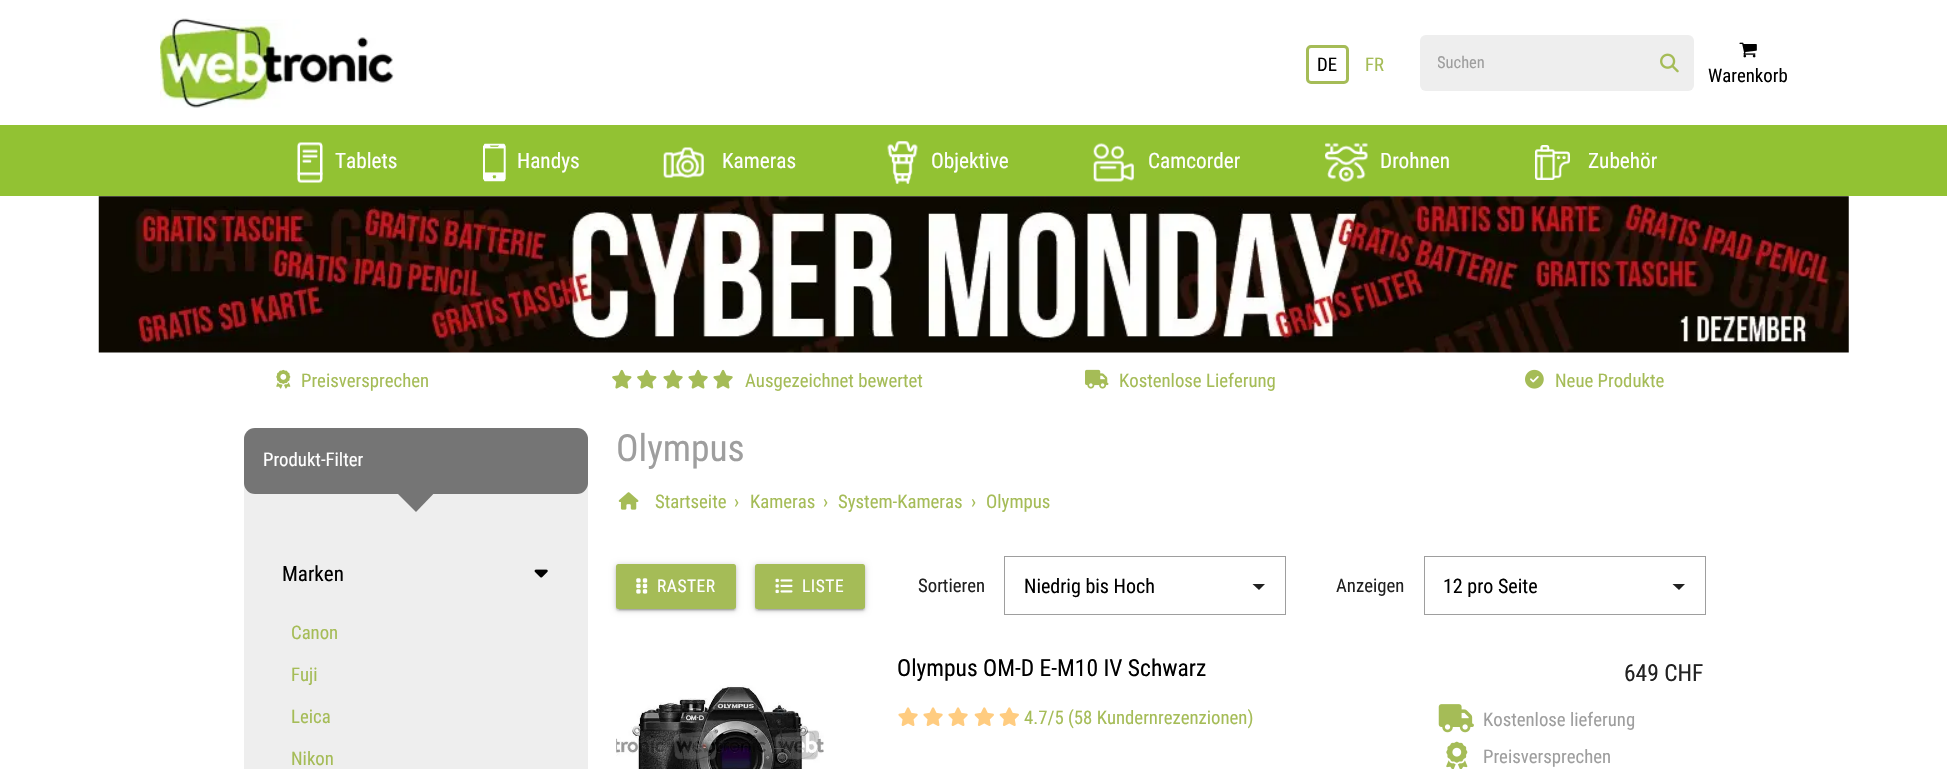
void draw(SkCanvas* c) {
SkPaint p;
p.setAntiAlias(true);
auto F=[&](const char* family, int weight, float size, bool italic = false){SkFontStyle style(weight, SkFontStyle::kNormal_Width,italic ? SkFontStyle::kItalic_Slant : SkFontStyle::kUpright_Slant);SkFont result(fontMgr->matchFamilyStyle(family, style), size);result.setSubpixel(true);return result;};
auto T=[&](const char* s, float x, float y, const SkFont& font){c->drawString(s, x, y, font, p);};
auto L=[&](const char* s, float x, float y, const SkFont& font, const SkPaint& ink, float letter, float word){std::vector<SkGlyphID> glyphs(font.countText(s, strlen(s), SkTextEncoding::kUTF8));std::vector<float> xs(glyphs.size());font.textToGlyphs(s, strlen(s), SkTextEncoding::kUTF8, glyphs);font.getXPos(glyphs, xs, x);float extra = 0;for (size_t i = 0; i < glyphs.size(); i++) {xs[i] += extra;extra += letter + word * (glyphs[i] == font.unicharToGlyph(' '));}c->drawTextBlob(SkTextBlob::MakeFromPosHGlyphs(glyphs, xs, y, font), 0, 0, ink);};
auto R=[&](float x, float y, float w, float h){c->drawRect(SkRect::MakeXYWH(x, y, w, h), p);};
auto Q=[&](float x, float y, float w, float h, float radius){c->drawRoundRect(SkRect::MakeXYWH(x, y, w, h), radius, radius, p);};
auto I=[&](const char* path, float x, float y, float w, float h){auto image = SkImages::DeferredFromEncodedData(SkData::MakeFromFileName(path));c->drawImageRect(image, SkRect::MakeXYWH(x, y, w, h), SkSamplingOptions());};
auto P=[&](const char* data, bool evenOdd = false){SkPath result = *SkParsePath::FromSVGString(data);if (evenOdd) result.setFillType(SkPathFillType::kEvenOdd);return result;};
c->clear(0xffffffff);
I("1.png",160,18,234,90);
p.setStroke(true);
p.setStrokeWidth(3);
p.setColor(0xffa5bc57);
c->drawRoundRect(SkRect::MakeXYWH(1307.5,46.5,40,36),3.5,3.5,p);
auto f1 = F("Roboto Condensed",400,18.75);
p.setStroke(false);
p.setColor(0xff000000);
T("DE",1317,71,f1);
p.setColor(0xffa5bc57);
T("FR",1365,71,f1);
p.setColor(0xffeeeeee);
Q(1420,35,274,56,6);
c->save();
c->clipRect(SkRect::MakeXYWH(1438,54,207,19));
auto f2 = F("Roboto Condensed",400,16.5);
p.setColor(0xff9e9e9e);
T("Suchen",1437,68,f2);
c->restore();
I("2.png",1660,53,19,20);
I("3.png",1739,42,18,16);
p.setColor(0xff000000);
T("Warenkorb",1708,82,f1);
p.setColor(0xff92c233);
R(0,125,1947,71);
I("4.png",297,142,26,41);
auto f3 = F("Roboto Condensed",400,21.25);
p.setColor(0xffffffff);
T("Tablets",335,168,f3);
I("5.png",483,143,23,39);
T("Handys",517,168,f3);
I("6.png",663,147,41,31);
T("Kameras",722,168,f3);
I("7.png",887,141,31,43);
T("Objektive",931,168,f3);
I("8.png",1093,143,41,39);
T("Camcorder",1148,168,f3);
I("9.png",1325,143,43,39);
T("Drohnen",1380,168,f3);
I("10.png",1535,145,35,35);
T("Zubehör",1588,168,f3);
I("11.png",98,196,1751,157);
I("12.png",276,369,15,20);
p.setColor(0xffa5bc57);
T("Preisversprechen",301,387,f1);
I("13.png",612,369,20,20);
I("13.png",637,369,20,20);
I("14.png",663,369,20,20);
I("14.png",688,369,20,20);
I("14.png",713,369,20,20);
T("Ausgezeichnet bewertet",745,387,f1);
I("15.png",1085,369,24,20);
T("Kostenlose Lieferung",1119,387,f1);
I("16.png",1525,369,19,20);
T("Neue Produkte",1555,387,f1);
p.setColor(0xffeeeeee);
Q(244,428,344,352,11);
p.setColor(0xff757575);
Q(244,428,344,66,11);
p.setColor(0xffffffff);
T("Produkt-Filter",263,466,f1);
p.setColor(0xff757575);
c->drawPath(P("M416 459l26 26l-26 27l-27-27z"),p);
auto f4 = F("Roboto Condensed",400,21);
p.setColor(0xff000000);
T("Marken",282,581,f4);
I("17.png",534,569,14,9);
p.setColor(0xffa5bc57);
T("Canon",291,639,f1);
T("Fuji",291,681,f1);
T("Leica",291,723,f1);
T("Nikon",291,765,f1);
auto f5 = F("Roboto Condensed",400,37.5);
p.setColor(0xff9e9e9e);
T("Olympus",616,461,f5);
I("18.png",618,492,21,18);
p.setColor(0xffa5bc57);
T("Startseite",655,508,f1);
T("›",734,508,f1);
T("Kameras",750,508,f1);
T("›",823,508,f1);
T("System-Kameras",838,508,f1);
T("›",971,508,f1);
T("Olympus",986,508,f1);
p.setColor(0x33000000);
p.setMaskFilter(SkMaskFilter::MakeBlur(kNormal_SkBlurStyle, 3));
c->drawRoundRect(SkRect::MakeXYWH(616,565,120,45),2.5,2.5,p);
p.setMaskFilter(nullptr);
p.setColor(0x1f000000);
p.setMaskFilter(SkMaskFilter::MakeBlur(kNormal_SkBlurStyle, .5));
c->drawRect(SkRect::MakeXYWH(619,570,115,40),p);
p.setMaskFilter(nullptr);
p.setColor(0x24000000);
p.setMaskFilter(SkMaskFilter::MakeBlur(kNormal_SkBlurStyle, 1));
c->drawRoundRect(SkRect::MakeXYWH(616,566,120,45),2.5,2.5,p);
p.setMaskFilter(nullptr);
p.setColor(0xffa5bc57);
Q(616,564,120,45,2.5);
I("19.png",636,578,12,16);
auto f6 = F("Roboto Condensed",400,17.5);
p.setColor(0xffffffff);
L("RASTER",657,592,f6,p,.5,0);
p.setColor(0x33000000);
p.setMaskFilter(SkMaskFilter::MakeBlur(kNormal_SkBlurStyle, 3));
c->drawRoundRect(SkRect::MakeXYWH(755,565,110,45),2.5,2.5,p);
p.setMaskFilter(nullptr);
p.setColor(0x1f000000);
p.setMaskFilter(SkMaskFilter::MakeBlur(kNormal_SkBlurStyle, .5));
c->drawRect(SkRect::MakeXYWH(758,570,105,40),p);
p.setMaskFilter(nullptr);
p.setColor(0x24000000);
p.setMaskFilter(SkMaskFilter::MakeBlur(kNormal_SkBlurStyle, 1));
c->drawRoundRect(SkRect::MakeXYWH(755,566,110,45),2.5,2.5,p);
p.setMaskFilter(nullptr);
p.setColor(0xffa5bc57);
Q(755,564,110,45,2.5);
I("20.png",775,578,18,16);
p.setColor(0xffffffff);
L("LISTE",802,592,f6,p,.5,0);
p.setColor(0xff212121);
T("Sortieren",918,592,f1);
c->drawPath(P("M1252.5 584l6.5 6l6-6z"),p);
p.setStroke(true);
p.setStrokeWidth(1);
p.setColor(0xff9e9e9e);
c->drawRect(SkRect::MakeXYWH(1004.5,556.5,281,58),p);
auto f7 = F("Roboto Condensed",400,20);
p.setStroke(false);
p.setColor(0xff000000);
T("Niedrig bis Hoch",1024,593,f7);
p.setColor(0xff212121);
T("Anzeigen",1336,592,f1);
c->drawPath(P("M1672.5 584l6.5 6l6-6z"),p);
p.setStroke(true);
p.setColor(0xff9e9e9e);
c->drawRect(SkRect::MakeXYWH(1424.5,556.5,281,58),p);
p.setStroke(false);
p.setColor(0xff000000);
T("12 pro Seite",1443,593,f7);
I("21.png",616,685,208,84);
auto f8 = F("Roboto Condensed",400,23.5);
T("Olympus OM-D E-M10 IV Schwarz",897,676,f8);
I("22.png",898,707,20,19);
I("22.png",923,707,20,19);
I("22.png",948,707,20,19);
I("23.png",974,707,20,19);
I("23.png",999,707,20,19);
p.setColor(0xffa5bc57);
T("4.7/5 (58 Kundernrezenzionen)",1024,724,f1);
p.setColor(0xff212121);
T("649 CHF",1624,681,f8);
I("24.png",1438,704,36,29);
p.setColor(0xff9e9e9e);
T("Kostenlose lieferung",1483,726,f1);
I("25.png",1446,741,22,28);
T("Preisversprechen",1483,763,f1);
}
